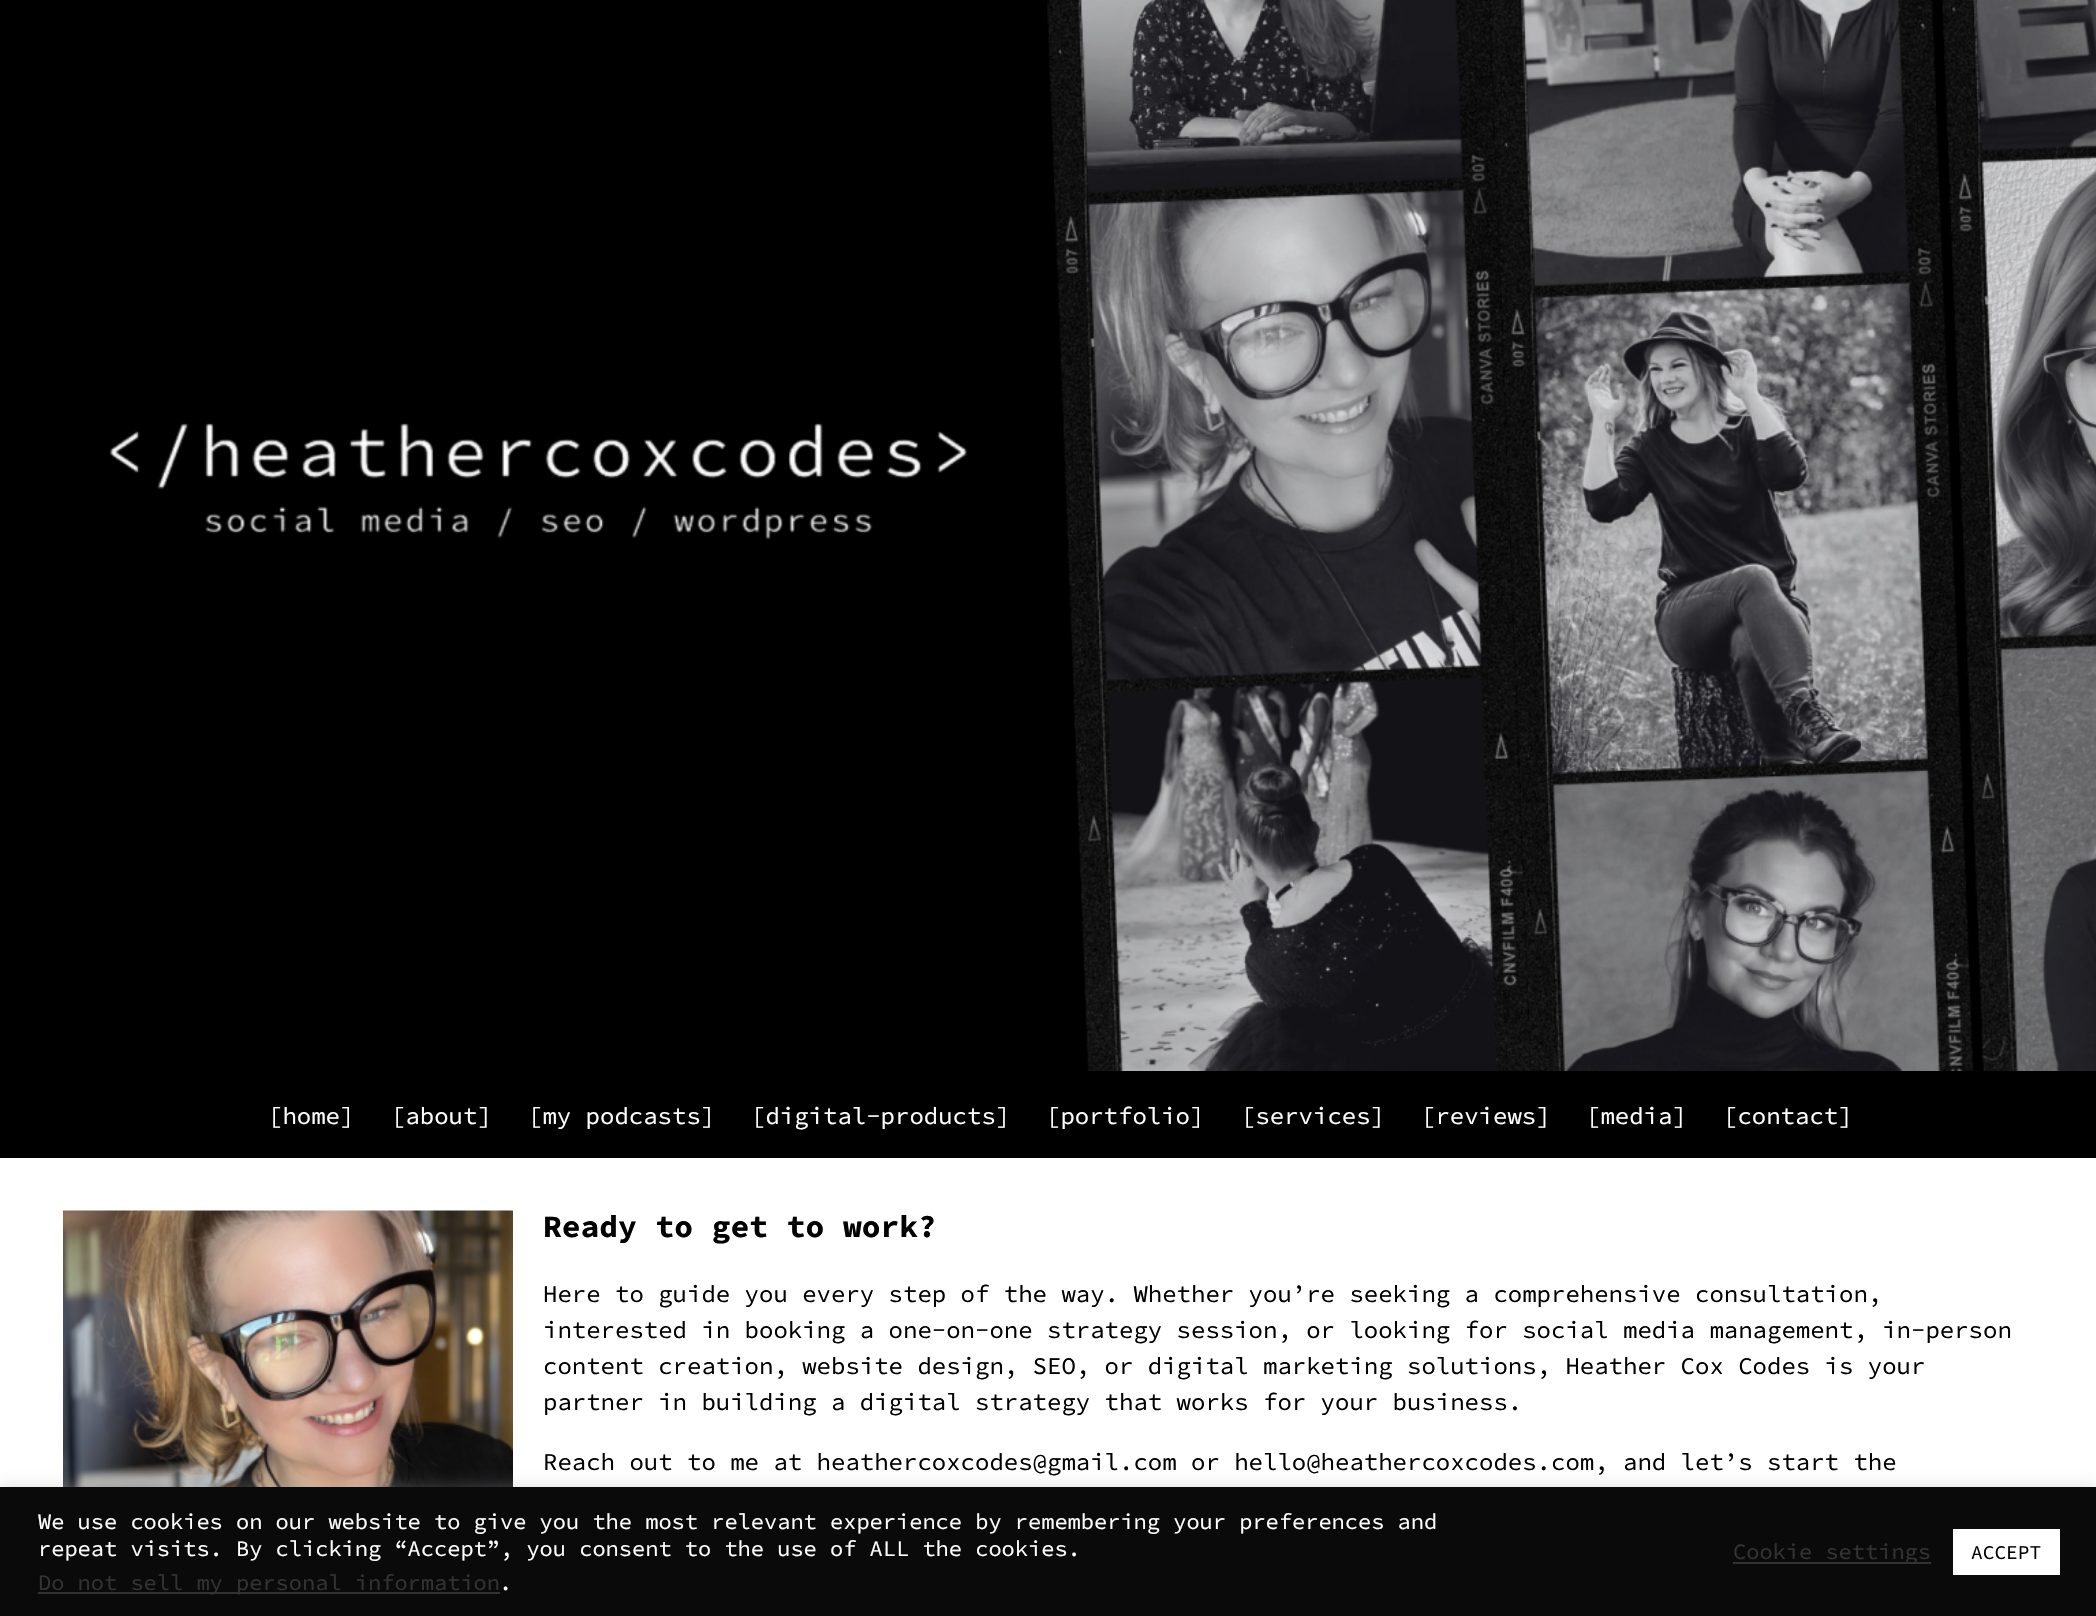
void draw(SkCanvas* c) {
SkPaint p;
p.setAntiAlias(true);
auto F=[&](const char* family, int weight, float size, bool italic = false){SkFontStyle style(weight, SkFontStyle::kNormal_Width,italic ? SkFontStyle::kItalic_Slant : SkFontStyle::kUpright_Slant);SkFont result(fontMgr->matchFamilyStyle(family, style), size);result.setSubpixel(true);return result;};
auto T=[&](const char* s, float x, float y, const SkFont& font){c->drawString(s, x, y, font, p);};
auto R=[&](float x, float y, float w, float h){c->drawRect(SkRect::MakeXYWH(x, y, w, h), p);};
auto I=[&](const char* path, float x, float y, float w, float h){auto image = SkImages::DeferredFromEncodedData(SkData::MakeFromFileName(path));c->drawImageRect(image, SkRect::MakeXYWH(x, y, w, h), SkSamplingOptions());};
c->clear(0xff000000);
I("1.png",109,0,1987,1071);
auto f1 = F("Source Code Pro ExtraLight",400,24);
p.setColor(0xffffffff);
T("[home]",268,1124,f1);
T("[about]",391,1124,f1);
T("[my podcasts]",528,1124,f1);
T("[digital-products]",751,1124,f1);
T("[portfolio]",1046,1124,f1);
T("[services]",1241,1124,f1);
T("[reviews]",1421,1124,f1);
T("[media]",1586,1124,f1);
T("[contact]",1723,1124,f1);
R(0,1158,2096,329);
I("2.png",63,1210,450,277);
auto f2 = F("Source Code Pro ExtraLight",700,31.25);
p.setColor(0xff000000);
T("Ready to get to work?",543,1237,f2);
T("Here to guide you every step of the way. Whether you’re seeking a comprehensive consultation,",543,1302,f1);
T("interested in booking a one-on-one strategy session, or looking for social media management, in-person",543,1338,f1);
T("content creation, website design, SEO, or digital marketing solutions, Heather Cox Codes is your",543,1374,f1);
T("partner in building a digital strategy that works for your business.",543,1410,f1);
T("Reach out to me at heathercoxcodes@gmail.com or hello@heathercoxcodes.com, and let’s start the",543,1470,f1);
p.setColor(0x4dacabab);
p.setMaskFilter(SkMaskFilter::MakeBlur(kNormal_SkBlurStyle, 7.5));
c->drawRect(SkRect::MakeXYWH(0,1485,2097,131),p);
p.setMaskFilter(nullptr);
p.setColor(0xff0a0a0a);
R(0,1487,2096,129);
auto f3 = F("Source Code Pro ExtraLight",400,22);
p.setColor(0xffffffff);
T("We use cookies on our website to give you the most relevant experience by remembering your preferences and",38,1529,f3);
T("repeat visits. By clicking “Accept”, you consent to the use of ALL the cookies.",38,1556,f3);
p.setColor(0xff333333);
R(38,1592,462,2);
T("Do not sell my personal information",38,1590,f3);
p.setColor(0xffffffff);
T(".",499,1590,f3);
p.setColor(0xff333333);
R(1733,1562,198,2);
T("Cookie settings",1733,1559,f3);
p.setColor(0xffffffff);
R(1953,1529,107,46);
auto f4 = F("Source Code Pro ExtraLight",400,19.5);
p.setColor(0xff000000);
T("ACCEPT",1971,1559,f4);
}
